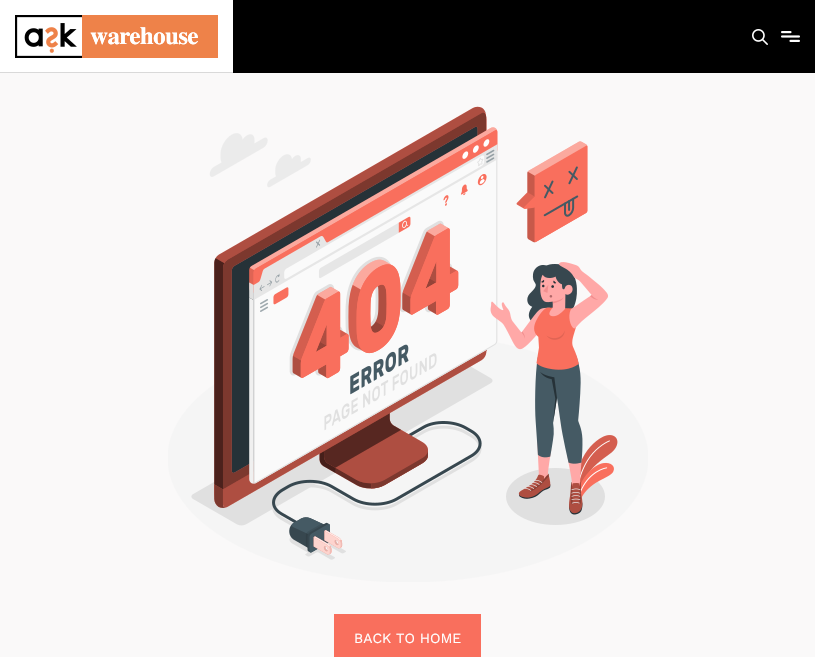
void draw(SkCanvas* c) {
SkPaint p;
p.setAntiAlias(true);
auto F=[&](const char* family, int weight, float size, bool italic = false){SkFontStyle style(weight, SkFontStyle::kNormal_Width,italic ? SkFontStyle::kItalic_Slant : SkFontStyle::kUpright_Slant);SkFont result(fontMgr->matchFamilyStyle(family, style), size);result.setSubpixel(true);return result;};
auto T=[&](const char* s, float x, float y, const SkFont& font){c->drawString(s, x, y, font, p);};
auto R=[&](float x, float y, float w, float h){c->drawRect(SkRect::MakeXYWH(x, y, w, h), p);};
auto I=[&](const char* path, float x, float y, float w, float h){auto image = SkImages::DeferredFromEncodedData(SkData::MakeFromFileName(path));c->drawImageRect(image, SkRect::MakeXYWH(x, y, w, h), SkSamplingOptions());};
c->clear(0xfffaf9f9);
p.setColor(0xff000000);
R(233,0,582,73);
p.setColor(0xffffffff);
R(0,0,233,72);
p.setColor(0xffd9d9d9);
R(0,72,233,1);
I("1.png",15,15,203,43);
I("2.png",752,29,16,16);
I("3.png",781,31,19,11);
I("4.png",168,106,480,476);
p.setColor(0xfff96f5d);
R(334,614,147,43);
auto f1 = F("Work Sans",400,14);
p.setColor(0xffffffff);
T("BACK TO HOME",354,643,f1);
}
